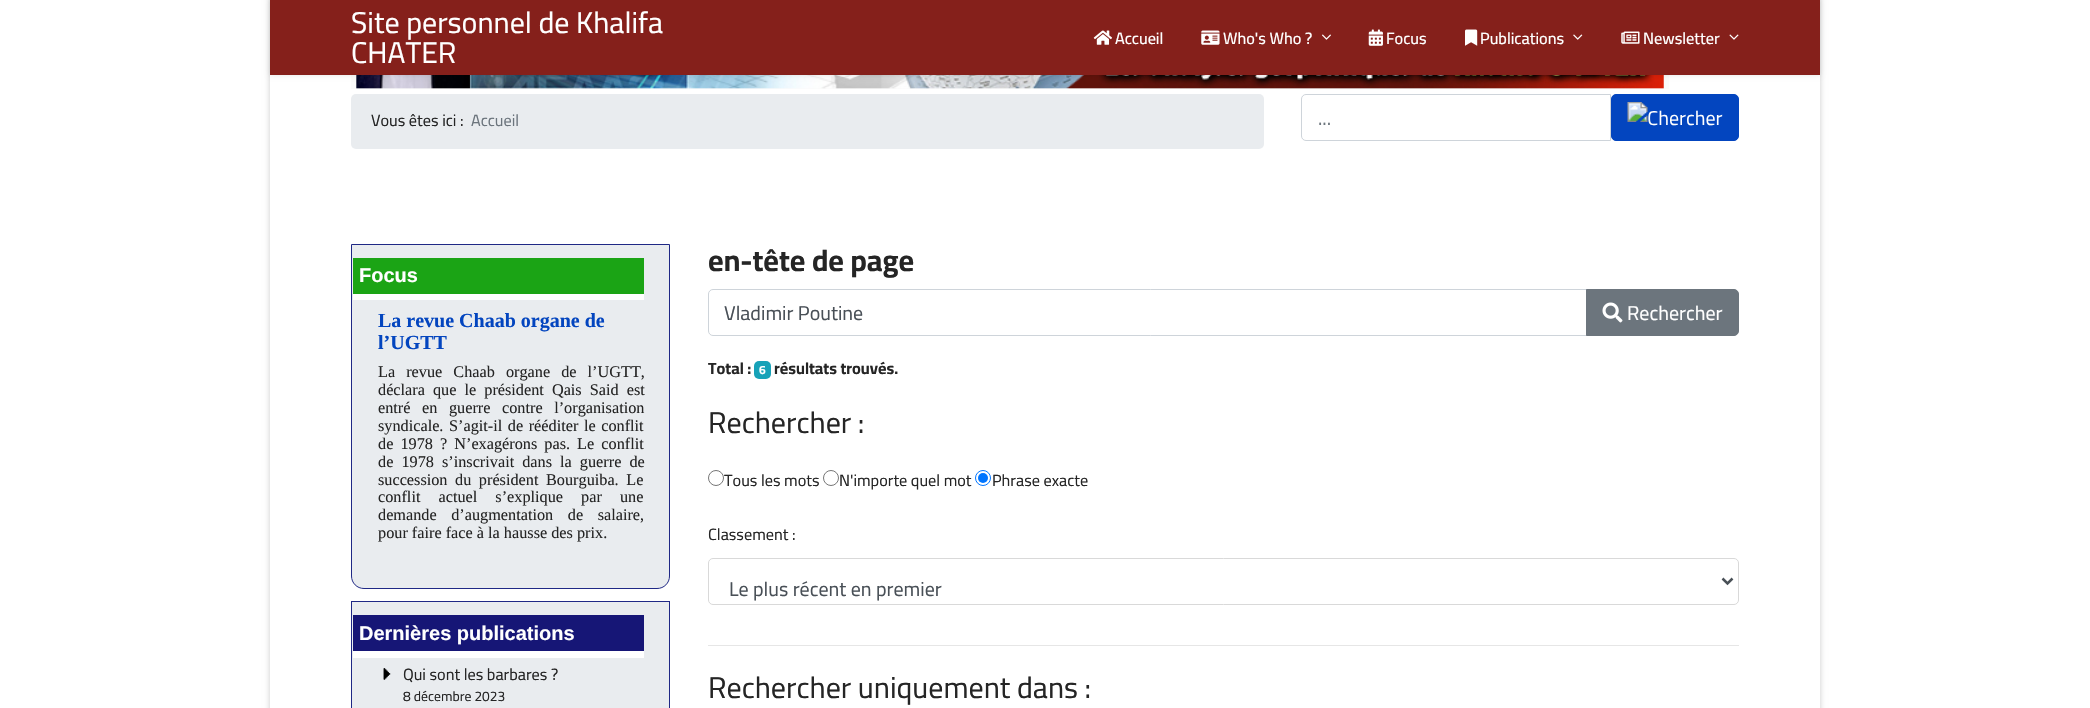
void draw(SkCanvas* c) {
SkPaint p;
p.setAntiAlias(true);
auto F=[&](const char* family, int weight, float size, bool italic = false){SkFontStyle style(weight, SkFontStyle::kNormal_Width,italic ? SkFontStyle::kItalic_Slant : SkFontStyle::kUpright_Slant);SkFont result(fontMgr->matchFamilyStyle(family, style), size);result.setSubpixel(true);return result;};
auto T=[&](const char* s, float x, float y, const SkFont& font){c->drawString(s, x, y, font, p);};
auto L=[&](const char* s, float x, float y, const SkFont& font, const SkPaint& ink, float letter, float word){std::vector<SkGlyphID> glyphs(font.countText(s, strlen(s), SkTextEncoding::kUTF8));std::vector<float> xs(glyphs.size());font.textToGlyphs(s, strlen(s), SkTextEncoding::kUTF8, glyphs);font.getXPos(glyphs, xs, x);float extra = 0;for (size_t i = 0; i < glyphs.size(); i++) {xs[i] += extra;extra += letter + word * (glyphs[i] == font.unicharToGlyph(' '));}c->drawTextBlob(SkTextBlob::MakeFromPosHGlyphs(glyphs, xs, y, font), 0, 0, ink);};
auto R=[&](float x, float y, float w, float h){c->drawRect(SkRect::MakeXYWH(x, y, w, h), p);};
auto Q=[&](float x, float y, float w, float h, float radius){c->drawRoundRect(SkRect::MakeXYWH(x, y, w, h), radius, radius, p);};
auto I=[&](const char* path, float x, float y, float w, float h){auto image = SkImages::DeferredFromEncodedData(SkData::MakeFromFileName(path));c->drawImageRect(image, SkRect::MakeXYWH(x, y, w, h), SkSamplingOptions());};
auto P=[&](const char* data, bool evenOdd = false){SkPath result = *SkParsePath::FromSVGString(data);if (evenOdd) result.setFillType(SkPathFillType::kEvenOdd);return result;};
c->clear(0xffffffff);
c->save();
c->clipPath(P("M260 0h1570v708h-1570zm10-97h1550v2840h-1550z",true),true);
p.setColor(0x33000000);
p.setMaskFilter(SkMaskFilter::MakeBlur(kNormal_SkBlurStyle, 3));
c->drawRect(SkRect::MakeXYWH(270,-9,1550,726),p);
p.setMaskFilter(nullptr);
c->restore();
I("9.png",351,75,1318,14);
p.setColor(0x1a000000);
p.setMaskFilter(SkMaskFilter::MakeBlur(kNormal_SkBlurStyle, 2.5));
c->drawRect(SkRect::MakeXYWH(270,0,1550,75),p);
p.setMaskFilter(nullptr);
p.setColor(0xff85201b);
R(270,0,1550,75);
auto f1 = F("Cairo",400,30);
p.setColor(0xffffffff);
T("Site personnel de Khalifa",351,33,f1);
T("CHATER",351,63,f1);
I("1.png",1093,30,19,15);
auto f2 = F("Cairo",500,16.25);
T("Accueil",1115,44,f2);
I("2.png",1201,30,19,15);
T("Who's Who ?",1223,44,f2);
I("3.png",1322,34,9,6);
I("4.png",1368,29,15,17);
T("Focus",1386,44,f2);
I("5.png",1465,29,13,17);
T("Publications",1480,44,f2);
I("6.png",1573,34,10,6);
I("7.png",1621,31,19,13);
T("Newsletter",1643,44,f2);
I("8.png",1729,34,10,6);
p.setColor(0xffe9ecef);
Q(351,94,913,55,5);
auto f3 = F("Cairo",400,16.25);
p.setColor(0xff252525);
T("Vous êtes ici :",371,126,f3);
p.setColor(0xff6c757d);
T("Accueil",471,126,f3);
p.setStroke(true);
p.setStrokeWidth(1);
p.setColor(0xffced4da);
c->drawPath(P("M1306 94.5h304.5v46h-304.5c-2.5 0-4.5-2-4.5-4.5v-37c0-2.5 2-4.5 4.5-4.5z"),p);
auto f4 = F("Cairo",400,20);
p.setStroke(false);
p.setColor(0xff6c757d);
T("...",1318,125,f4);
p.setColor(0xff0345bf);
c->drawRoundRect(SkRect::MakeXYWH(1611.5,94.5,127,46),4.5,4.5,p);
p.setStroke(true);
c->drawRoundRect(SkRect::MakeXYWH(1611.5,94.5,127,46),4.5,4.5,p);
I("10.png",1627,102,96,24);
p.setStroke(false);
p.setColor(0xffe9ecef);
c->drawPath(P("M351.5 244.5h318v331.5c0 7-5.5 12.5-12.5 12.5h-293c-7 0-12.5-5.5-12.5-12.5z"),p);
p.setStroke(true);
p.setColor(0xff1f2885);
c->drawPath(P("M351.5 244.5h318v331.5c0 7-5.5 12.5-12.5 12.5h-293c-7 0-12.5-5.5-12.5-12.5z"),p);
p.setStroke(false);
p.setColor(0xff1ba415);
R(353,258,291,36);
p.setColor(0xffffffff);
R(353,294,291,6);
auto f5 = F("Liberation Sans",700,20);
T("Focus",359,282,f5);
auto f6 = F("Liberation Serif",700,20);
p.setColor(0xff0345bf);
T("La revue Chaab organe de",378,327,f6);
T("l’UGTT",378,349,f6);
auto f7 = F("Liberation Serif",400,16.25);
p.setColor(0xff252525);
L("La revue Chaab organe de l’UGTT,",378,377,f7,p,0,7);
L("déclara que le président Qais Said est",378,395,f7,p,0,4);
L("entré en guerre contre l’organisation",378,413,f7,p,0,7.5);
L("syndicale. S’agit-il de rééditer le conflit",378,431,f7,p,0,1.5);
L("de 1978 ? N’exagérons pas. Le conflit",378,449,f7,p,0,3);
L("de 1978 s’inscrivait dans la guerre de",378,467,f7,p,0,4);
L("succession du président Bourguiba. Le",378,485,f7,p,0,3.5);
L("conflit actuel s’explique par une",378,502,f7,p,0,14);
L("demande d’augmentation de salaire,",378,520,f7,p,0,10.5);
T("pour faire face à la hausse des prix.",378,538,f7);
p.setColor(0xffe9ecef);
c->drawRect(SkRect::MakeXYWH(351.5,601.5,318,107),p);
p.setStroke(true);
p.setColor(0xff1f2885);
c->drawRect(SkRect::MakeXYWH(351.5,601.5,318,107),p);
p.setStroke(false);
p.setColor(0xff161676);
R(353,615,291,36);
p.setColor(0xffffffff);
R(353,651,291,7);
T("Dernières publications",359,640,f5);
I("11.png",383,668,8,12);
I("12.png",383,668,8,12);
p.setColor(0xff252525);
T("Qui sont les barbares ?",403,680,f3);
auto f8 = F("Cairo",400,13.75);
T("8 décembre 2023",403,701,f8);
auto f9 = F("Cairo",700,30);
T("en-tête de page",708,271,f9);
p.setStroke(true);
p.setColor(0xffced4da);
c->drawPath(P("M713 289.5h874.5v46h-874.5c-2.5 0-4.5-2-4.5-4.5v-37c0-2.5 2-4.5 4.5-4.5z"),p);
p.setStroke(false);
p.setColor(0xff495057);
T("Vladimir Poutine",724,320,f4);
p.setColor(0xff6c757d);
c->drawPath(P("M1586.5 289.5h147.5c2.5 0 4.5 2 4.5 4.5v37c0 2.5-2 4.5-4.5 4.5h-147.5z"),p);
p.setStroke(true);
c->drawPath(P("M1586.5 289.5h147.5c2.5 0 4.5 2 4.5 4.5v37c0 2.5-2 4.5-4.5 4.5h-147.5z"),p);
I("13.png",1602,302,21,21);
p.setStroke(false);
p.setColor(0xffffffff);
T("Rechercher",1627,320,f4);
auto f10 = F("Cairo",700,16.25);
p.setColor(0xff252525);
T("Total :",708,374,f10);
p.setColor(0xff17a2b8);
Q(754,361,17,18,5);
auto f11 = F("Cairo",700,12);
p.setColor(0xffffffff);
T("6",759,374,f11);
p.setColor(0xff252525);
T("résultats trouvés.",774,374,f10);
T("Rechercher :",708,433,f1);
p.setStroke(true);
p.setColor(0xff767676);
c->drawCircle(716,478,7.5,p);
p.setStroke(false);
p.setColor(0xff252525);
T("Tous les mots",724,486,f3);
p.setStroke(true);
p.setColor(0xff767676);
c->drawCircle(831,478,7.5,p);
p.setStroke(false);
p.setColor(0xff252525);
T("N'importe quel mot",839,486,f3);
p.setStroke(true);
p.setColor(0xff0075ff);
c->drawCircle(983,478,7.5,p);
p.setStroke(false);
c->drawCircle(983,478,5,p);
p.setColor(0xff252525);
T("Phrase exacte",992,486,f3);
T("Classement :",708,540,f3);
p.setStroke(true);
p.setColor(0xffd9d9d9);
c->drawRoundRect(SkRect::MakeXYWH(708.5,558.5,1030,46),4.5,4.5,p);
p.setStrokeWidth(2.5);
p.setColor(0xff495057);
c->drawPath(P("M1722.5 578.5l5 5l5-5"),p);
p.setStroke(false);
T("Le plus récent en premier",729,596,f4);
p.setColor(0xffe6e6e6);
R(708,645,1031,1);
p.setColor(0xff252525);
T("Rechercher uniquement dans :",708,698,f1);
}
